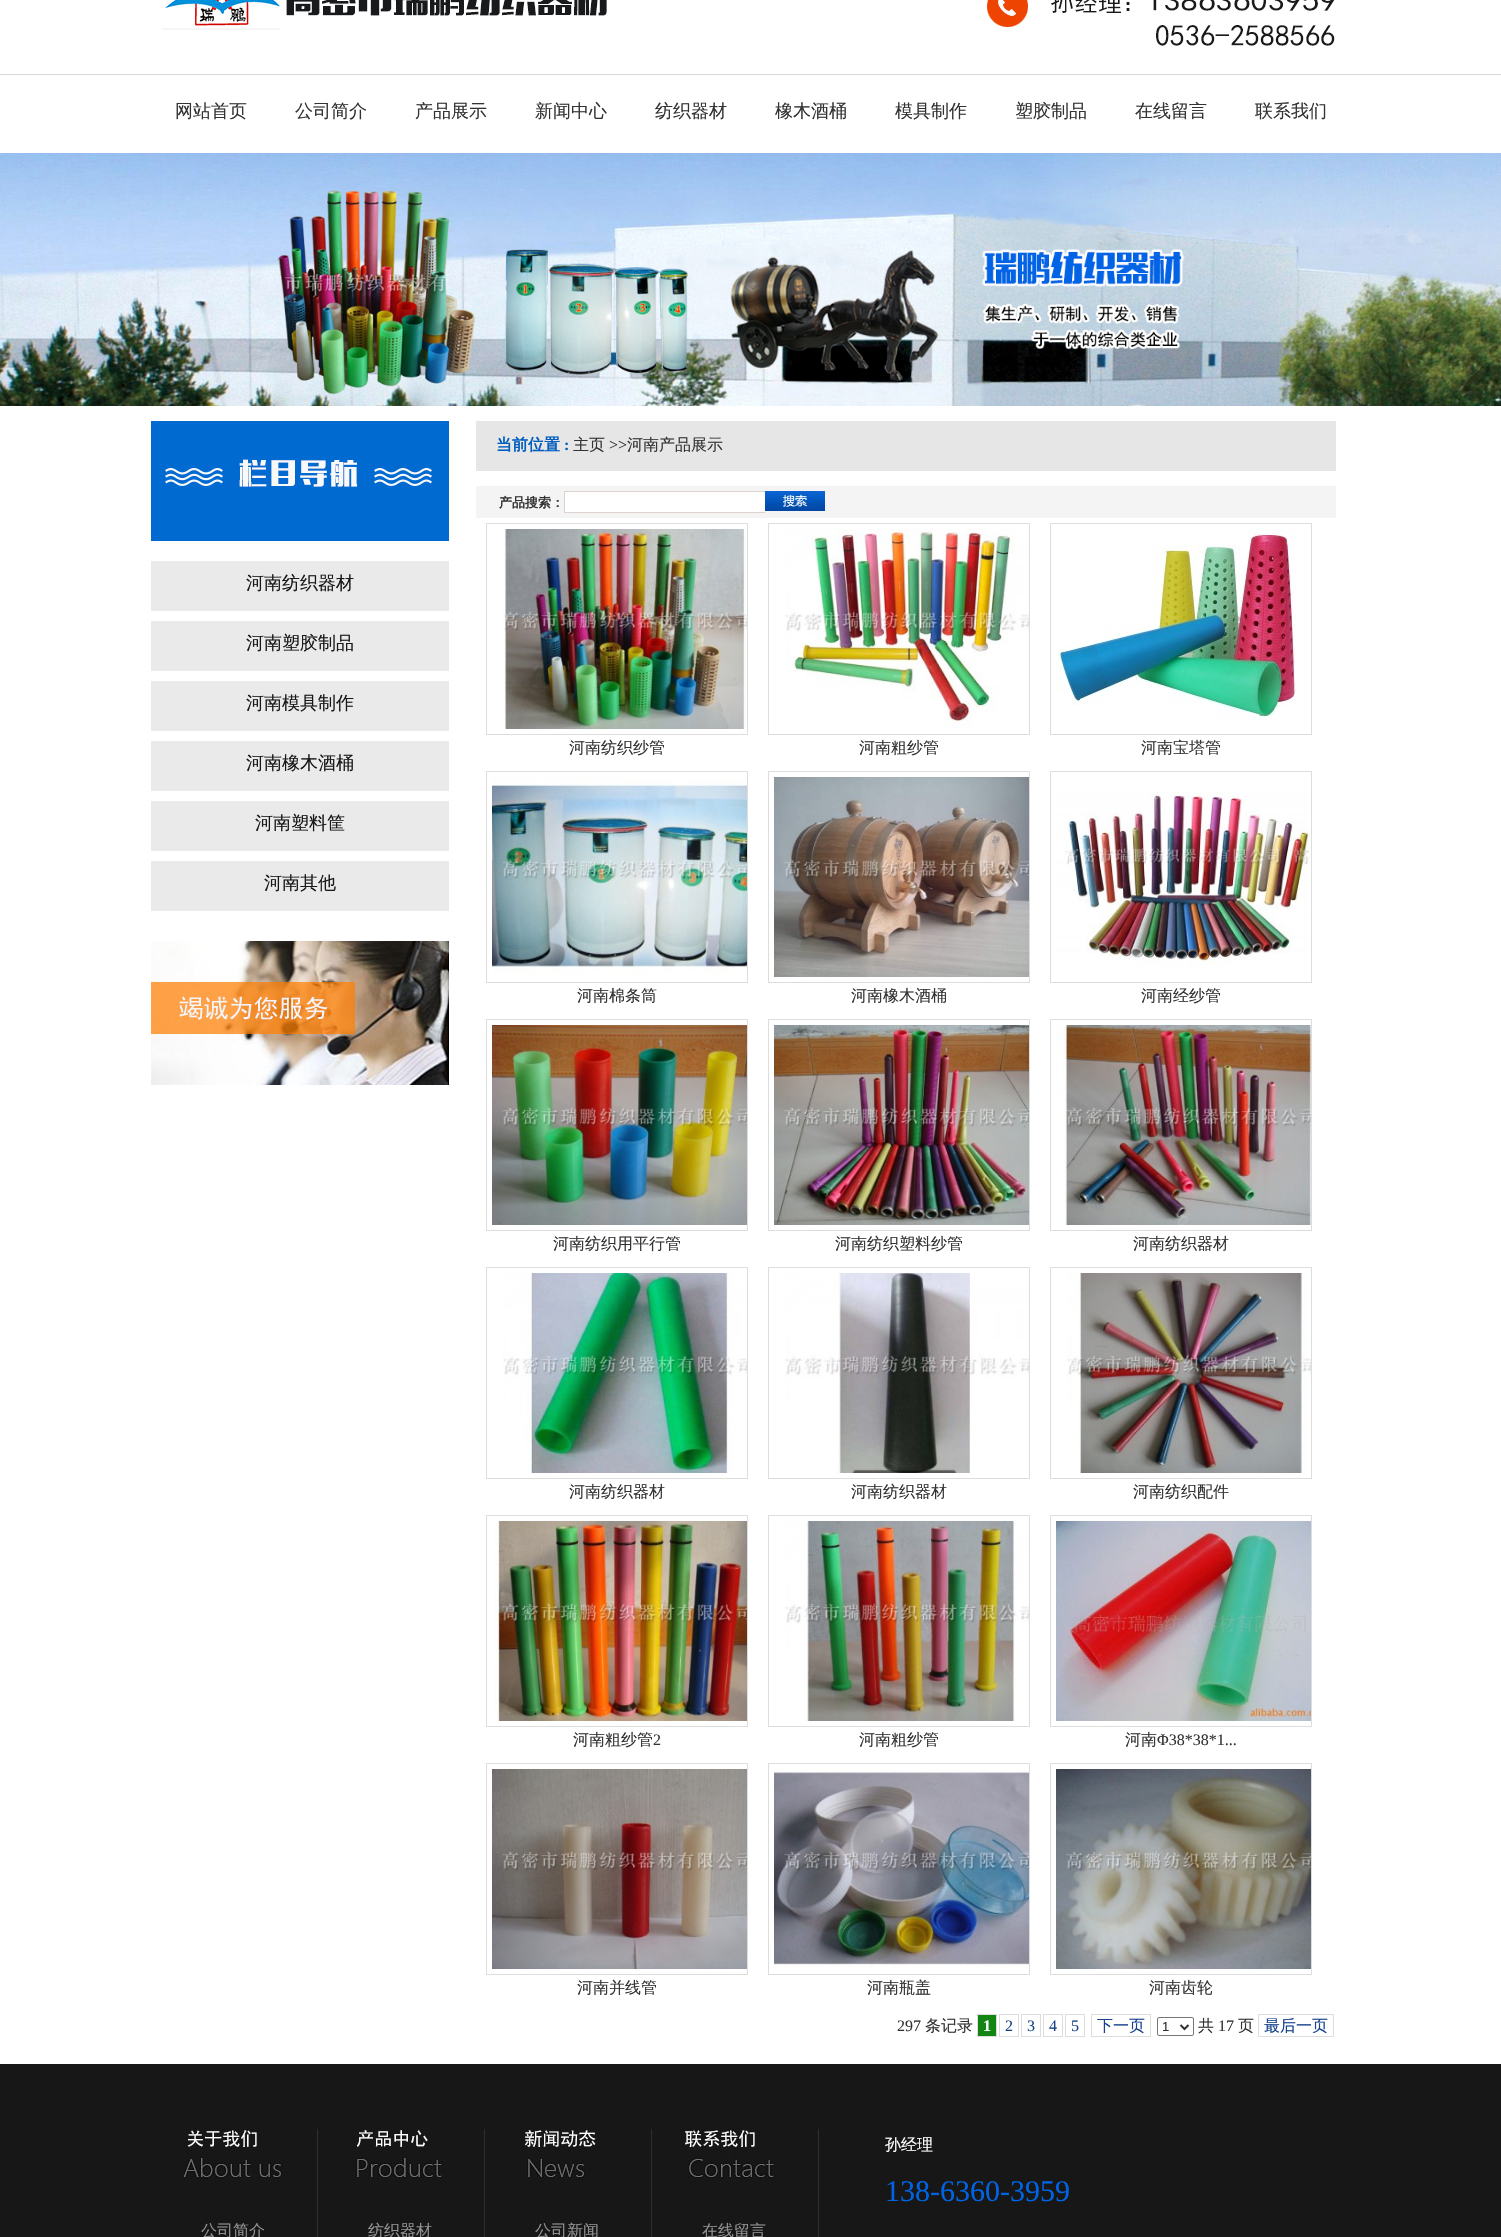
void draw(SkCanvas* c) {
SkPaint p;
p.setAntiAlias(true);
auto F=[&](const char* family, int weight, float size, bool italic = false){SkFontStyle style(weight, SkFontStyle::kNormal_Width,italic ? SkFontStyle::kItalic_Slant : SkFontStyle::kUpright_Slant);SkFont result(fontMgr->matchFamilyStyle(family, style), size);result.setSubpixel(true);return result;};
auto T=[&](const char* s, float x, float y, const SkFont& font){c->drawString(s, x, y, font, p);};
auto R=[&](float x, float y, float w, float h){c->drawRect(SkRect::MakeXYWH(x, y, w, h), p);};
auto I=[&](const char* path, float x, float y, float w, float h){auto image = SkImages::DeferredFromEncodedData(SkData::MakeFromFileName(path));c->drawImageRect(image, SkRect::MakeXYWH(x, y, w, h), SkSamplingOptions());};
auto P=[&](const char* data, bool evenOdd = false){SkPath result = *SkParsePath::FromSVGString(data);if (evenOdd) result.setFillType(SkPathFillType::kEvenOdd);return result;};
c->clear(0xffffffff);
I("1.png",162,0,445,30);
I("2.png",987,0,348,46);
p.setColor(0xffd8d8d8);
R(0,74,1501,1);
auto f1 = F("WenQuanYi Zen Hei",500,18);
p.setColor(0xff333333);
T("网站首页",175,117,f1);
T("公司简介",295,117,f1);
T("产品展示",415,117,f1);
T("新闻中心",535,117,f1);
T("纺织器材",655,117,f1);
T("橡木酒桶",775,117,f1);
T("模具制作",895,117,f1);
T("塑胶制品",1015,117,f1);
T("在线留言",1135,117,f1);
T("联系我们",1255,117,f1);
I("3.png",0,153,1501,253);
I("4.png",151,421,298,120);
p.setColor(0xffeaeaea);
R(151,561,298,50);
p.setColor(0xff181818);
T("河南纺织器材",246,589,f1);
p.setColor(0xffeaeaea);
R(151,621,298,50);
p.setColor(0xff181818);
T("河南塑胶制品",246,649,f1);
p.setColor(0xffeaeaea);
R(151,681,298,50);
p.setColor(0xff181818);
T("河南模具制作",246,709,f1);
p.setColor(0xffeaeaea);
R(151,741,298,50);
p.setColor(0xff181818);
T("河南橡木酒桶",246,769,f1);
p.setColor(0xffeaeaea);
R(151,801,298,50);
p.setColor(0xff181818);
T("河南塑料筐",255,829,f1);
p.setColor(0xffeaeaea);
R(151,861,298,50);
p.setColor(0xff181818);
T("河南其他",264,889,f1);
I("5.png",151,941,298,144);
p.setColor(0xffe6e6e6);
R(476,421,860,50);
auto f2 = F("WenQuanYi Zen Hei",700,16);
p.setColor(0xff025dbf);
T("当前位置",496,450,f2);
auto f3 = F("Liberation Serif",700,16);
T(":",564,450,f3);
auto f4 = F("WenQuanYi Zen Hei",500,16);
p.setColor(0xff333333);
T("主页",573,450,f4);
auto f5 = F("Liberation Serif",400,16);
T(">>",609,450,f5);
T("河南产品展示",627,450,f4);
p.setColor(0xfff4f4f4);
R(476,486,860,32);
auto f6 = F("WenQuanYi Zen Hei",700,13);
p.setColor(0xff333333);
T("产品搜索：",499,507,f6);
p.setColor(0xffffffff);
R(565,492,200,20);
p.setColor(0xffdcd3cf);
R(564,491,201,1);
R(564,512,201,1);
R(564,491,1,22);
I("6.png",765,491,60,20);
p.setStroke(true);
p.setStrokeWidth(1);
p.setColor(0xffdddddd);
c->drawRect(SkRect::MakeXYWH(486.5,523.5,261,211),p);
I("7.png",503,529,244,200);
p.setStroke(false);
p.setColor(0xff333333);
T("河南纺织纱管",569,753,f4);
p.setStroke(true);
p.setColor(0xffdddddd);
c->drawRect(SkRect::MakeXYWH(768.5,523.5,261,211),p);
I("8.png",785,529,244,199);
p.setStroke(false);
p.setColor(0xff333333);
T("河南粗纱管",859,753,f4);
p.setStroke(true);
p.setColor(0xffdddddd);
c->drawRect(SkRect::MakeXYWH(1050.5,523.5,261,211),p);
I("9.png",1056,529,240,191);
p.setStroke(false);
p.setColor(0xff333333);
T("河南宝塔管",1141,753,f4);
p.setStroke(true);
p.setColor(0xffdddddd);
c->drawRect(SkRect::MakeXYWH(486.5,771.5,261,211),p);
I("10.png",492,777,255,197);
p.setStroke(false);
p.setColor(0xff333333);
T("河南棉条筒",577,1001,f4);
p.setStroke(true);
p.setColor(0xffdddddd);
c->drawRect(SkRect::MakeXYWH(768.5,771.5,261,211),p);
I("11.png",774,777,255,200);
p.setStroke(false);
p.setColor(0xff333333);
T("河南橡木酒桶",851,1001,f4);
p.setStroke(true);
p.setColor(0xffdddddd);
c->drawRect(SkRect::MakeXYWH(1050.5,771.5,261,211),p);
I("12.png",1056,792,255,176);
p.setStroke(false);
p.setColor(0xff333333);
T("河南经纱管",1141,1001,f4);
p.setStroke(true);
p.setColor(0xffdddddd);
c->drawRect(SkRect::MakeXYWH(486.5,1019.5,261,211),p);
I("13.png",492,1025,255,200);
p.setStroke(false);
p.setColor(0xff333333);
T("河南纺织用平行管",553,1249,f4);
p.setStroke(true);
p.setColor(0xffdddddd);
c->drawRect(SkRect::MakeXYWH(768.5,1019.5,261,211),p);
I("14.png",774,1025,255,200);
p.setStroke(false);
p.setColor(0xff333333);
T("河南纺织塑料纱管",835,1249,f4);
p.setStroke(true);
p.setColor(0xffdddddd);
c->drawRect(SkRect::MakeXYWH(1050.5,1019.5,261,211),p);
I("15.png",1056,1025,255,200);
p.setStroke(false);
p.setColor(0xff333333);
T("河南纺织器材",1133,1249,f4);
p.setStroke(true);
p.setColor(0xffdddddd);
c->drawRect(SkRect::MakeXYWH(486.5,1267.5,261,211),p);
I("16.png",503,1273,244,200);
p.setStroke(false);
p.setColor(0xff333333);
T("河南纺织器材",569,1497,f4);
p.setStroke(true);
p.setColor(0xffdddddd);
c->drawRect(SkRect::MakeXYWH(768.5,1267.5,261,211),p);
I("17.png",785,1273,244,200);
p.setStroke(false);
p.setColor(0xff333333);
T("河南纺织器材",851,1497,f4);
p.setStroke(true);
p.setColor(0xffdddddd);
c->drawRect(SkRect::MakeXYWH(1050.5,1267.5,261,211),p);
I("18.png",1067,1273,244,200);
p.setStroke(false);
p.setColor(0xff333333);
T("河南纺织配件",1133,1497,f4);
p.setStroke(true);
p.setColor(0xffdddddd);
c->drawRect(SkRect::MakeXYWH(486.5,1515.5,261,211),p);
I("19.png",494,1521,253,200);
p.setStroke(false);
p.setColor(0xff333333);
T("河南粗纱管",573,1745,f4);
T("2",653,1745,f5);
p.setStroke(true);
p.setColor(0xffdddddd);
c->drawRect(SkRect::MakeXYWH(768.5,1515.5,261,211),p);
I("20.png",785,1521,244,200);
p.setStroke(false);
p.setColor(0xff333333);
T("河南粗纱管",859,1745,f4);
p.setStroke(true);
p.setColor(0xffdddddd);
c->drawRect(SkRect::MakeXYWH(1050.5,1515.5,261,211),p);
I("21.png",1056,1521,255,200);
p.setStroke(false);
p.setColor(0xff333333);
T("河南",1125,1745,f4);
T("Φ38*38*1...",1157,1745,f5);
p.setStroke(true);
p.setColor(0xffdddddd);
c->drawRect(SkRect::MakeXYWH(486.5,1763.5,261,211),p);
I("22.png",492,1769,255,200);
p.setStroke(false);
p.setColor(0xff333333);
T("河南并线管",577,1993,f4);
p.setStroke(true);
p.setColor(0xffdddddd);
c->drawRect(SkRect::MakeXYWH(768.5,1763.5,261,211),p);
I("23.png",774,1769,255,199);
p.setStroke(false);
p.setColor(0xff333333);
T("河南瓶盖",867,1993,f4);
p.setStroke(true);
p.setColor(0xffdddddd);
c->drawRect(SkRect::MakeXYWH(1050.5,1763.5,261,211),p);
I("24.png",1056,1769,255,200);
p.setStroke(false);
p.setColor(0xff333333);
T("河南齿轮",1149,1993,f4);
T("297",897,2031,f5);
T("条记录",925,2031,f4);
p.setColor(0xff138513);
c->drawRect(SkRect::MakeXYWH(977.5,2014.5,19,22),p);
p.setStroke(true);
p.setColor(0xffdddddd);
c->drawRect(SkRect::MakeXYWH(977.5,2014.5,19,22),p);
p.setStroke(false);
p.setColor(0xffffffff);
T("1",983,2031,f3);
p.setStroke(true);
p.setColor(0xffdddddd);
c->drawRect(SkRect::MakeXYWH(999.5,2014.5,19,22),p);
p.setStroke(false);
p.setColor(0xff15428b);
T("2",1005,2031,f5);
p.setStroke(true);
p.setColor(0xffdddddd);
c->drawRect(SkRect::MakeXYWH(1021.5,2014.5,19,22),p);
p.setStroke(false);
p.setColor(0xff15428b);
T("3",1027,2031,f5);
p.setStroke(true);
p.setColor(0xffdddddd);
c->drawRect(SkRect::MakeXYWH(1043.5,2014.5,19,22),p);
p.setStroke(false);
p.setColor(0xff15428b);
T("4",1049,2031,f5);
p.setStroke(true);
p.setColor(0xffdddddd);
c->drawRect(SkRect::MakeXYWH(1065.5,2014.5,19,22),p);
p.setStroke(false);
p.setColor(0xff15428b);
T("5",1071,2031,f5);
p.setStroke(true);
p.setColor(0xffdddddd);
c->drawRect(SkRect::MakeXYWH(1091.5,2014.5,59,22),p);
p.setStroke(false);
p.setColor(0xff15428b);
T("下一页",1097,2031,f4);
p.setStroke(true);
p.setColor(0xff767676);
c->drawRoundRect(SkRect::MakeXYWH(1157.5,2017.5,36,18),1.5,1.5,p);
p.setStrokeWidth(2);
p.setColor(0xff333333);
c->drawPath(P("M1180.5 2025l4 4l4-4"),p);
auto f7 = F("Liberation Sans",400,13);
p.setStroke(false);
T("1",1162,2031,f7);
T("共",1198,2031,f4);
T("17",1218,2031,f5);
T("页",1238,2031,f4);
p.setStroke(true);
p.setStrokeWidth(1);
p.setColor(0xffdddddd);
c->drawRect(SkRect::MakeXYWH(1258.5,2014.5,75,22),p);
p.setStroke(false);
p.setColor(0xff15428b);
T("最后一页",1264,2031,f4);
p.setColor(0xff171717);
R(0,2064,1501,173);
p.setColor(0xffffffff);
T("孙经理",885,2150,f4);
auto f8 = F("Liberation Serif",400,30);
p.setColor(0xff0164e5);
T("138-6360-3959",885,2201,f8);
p.setColor(0xff2e2e2e);
R(317,2129,1,108);
I("25.png",184,2130,101,50);
p.setColor(0xff919191);
T("公司简介",201,2236,f4);
p.setColor(0xff2e2e2e);
R(484,2129,1,108);
I("26.png",351,2130,94,50);
p.setColor(0xff919191);
T("纺织器材",368,2236,f4);
p.setColor(0xff2e2e2e);
R(651,2129,1,108);
I("27.png",522,2130,74,50);
p.setColor(0xff919191);
T("公司新闻",535,2236,f4);
p.setColor(0xff2e2e2e);
R(818,2129,1,108);
I("28.png",685,2130,89,50);
p.setColor(0xff919191);
T("在线留言",702,2236,f4);
}
